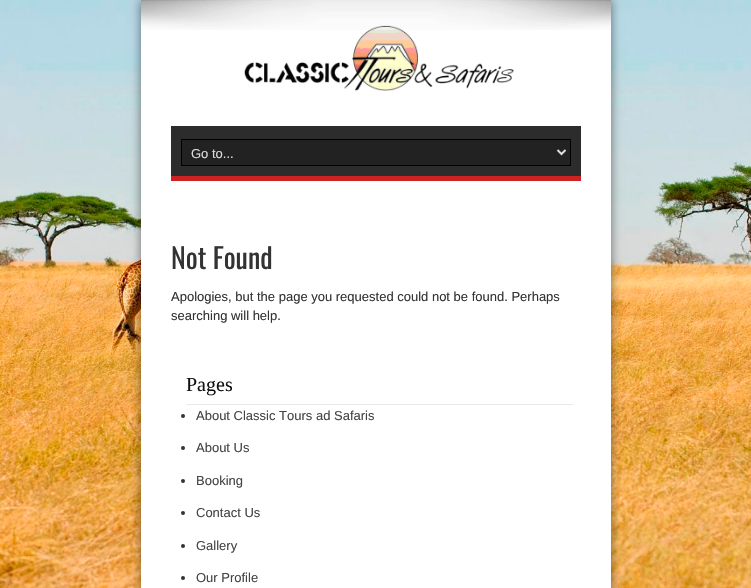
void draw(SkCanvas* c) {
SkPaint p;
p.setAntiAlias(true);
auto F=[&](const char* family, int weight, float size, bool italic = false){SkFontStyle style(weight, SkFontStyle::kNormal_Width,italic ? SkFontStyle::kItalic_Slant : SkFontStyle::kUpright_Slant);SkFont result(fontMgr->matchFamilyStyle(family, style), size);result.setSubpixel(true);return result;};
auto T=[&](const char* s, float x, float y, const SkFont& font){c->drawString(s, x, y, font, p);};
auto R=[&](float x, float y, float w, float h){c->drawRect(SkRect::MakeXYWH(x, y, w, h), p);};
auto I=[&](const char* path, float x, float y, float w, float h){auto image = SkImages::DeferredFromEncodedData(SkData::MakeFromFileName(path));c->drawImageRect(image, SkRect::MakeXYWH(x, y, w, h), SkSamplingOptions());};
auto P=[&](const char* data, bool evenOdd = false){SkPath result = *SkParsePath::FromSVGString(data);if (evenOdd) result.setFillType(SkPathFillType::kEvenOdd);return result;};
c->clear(0xffffffff);
I("1.png",0,0,751,588);
p.setColor(0x80000000);
p.setMaskFilter(SkMaskFilter::MakeBlur(kNormal_SkBlurStyle, 5));
c->drawRect(SkRect::MakeXYWH(141,0,470,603),p);
p.setMaskFilter(nullptr);
p.setColor(0xffffffff);
R(141,0,470,588);
I("2.png",141,0,470,30);
I("3.png",244,25,270,66);
p.setColor(0xff2c2c2c);
R(171,126,410,50);
p.setColor(0xffcd2122);
R(171,176,410,5);
p.setColor(0xff222222);
c->drawRect(SkRect::MakeXYWH(181.5,139.5,389,26),p);
p.setStroke(true);
p.setStrokeWidth(1);
p.setColor(0xff000000);
c->drawRect(SkRect::MakeXYWH(181.5,139.5,389,26),p);
p.setStrokeWidth(2);
p.setColor(0xffdddddd);
c->drawPath(P("M557.5 150l4 4l4-4"),p);
auto f1 = F("Liberation Sans",400,13);
p.setStroke(false);
T("Go to...",191,158,f1);
auto f2 = F("Oswald",400,28);
p.setColor(0xff333333);
T("Not Found",171,269,f2);
T("Apologies, but the page you requested could not be found. Perhaps",171,301,f1);
T("searching will help.",171,320,f1);
p.setColor(0xffe9e9e9);
R(186,404,387,1);
auto f3 = F("Liberation Serif",400,20);
p.setColor(0xff111111);
T("Pages",186,391,f3);
p.setColor(0xff333333);
c->drawCircle(183,416,2,p);
p.setColor(0xff444444);
T("About Classic Tours ad Safaris",196,420,f1);
p.setColor(0xff333333);
c->drawCircle(183,448,2,p);
p.setColor(0xff444444);
T("About Us",196,452,f1);
p.setColor(0xff333333);
c->drawCircle(183,481,2,p);
p.setColor(0xff444444);
T("Booking",196,485,f1);
p.setColor(0xff333333);
c->drawCircle(183,513,2,p);
p.setColor(0xff444444);
T("Contact Us",196,517,f1);
p.setColor(0xff333333);
c->drawCircle(183,546,2,p);
p.setColor(0xff444444);
T("Gallery",196,550,f1);
p.setColor(0xff333333);
c->drawCircle(183,578,2,p);
p.setColor(0xff444444);
T("Our Profile",196,582,f1);
}
